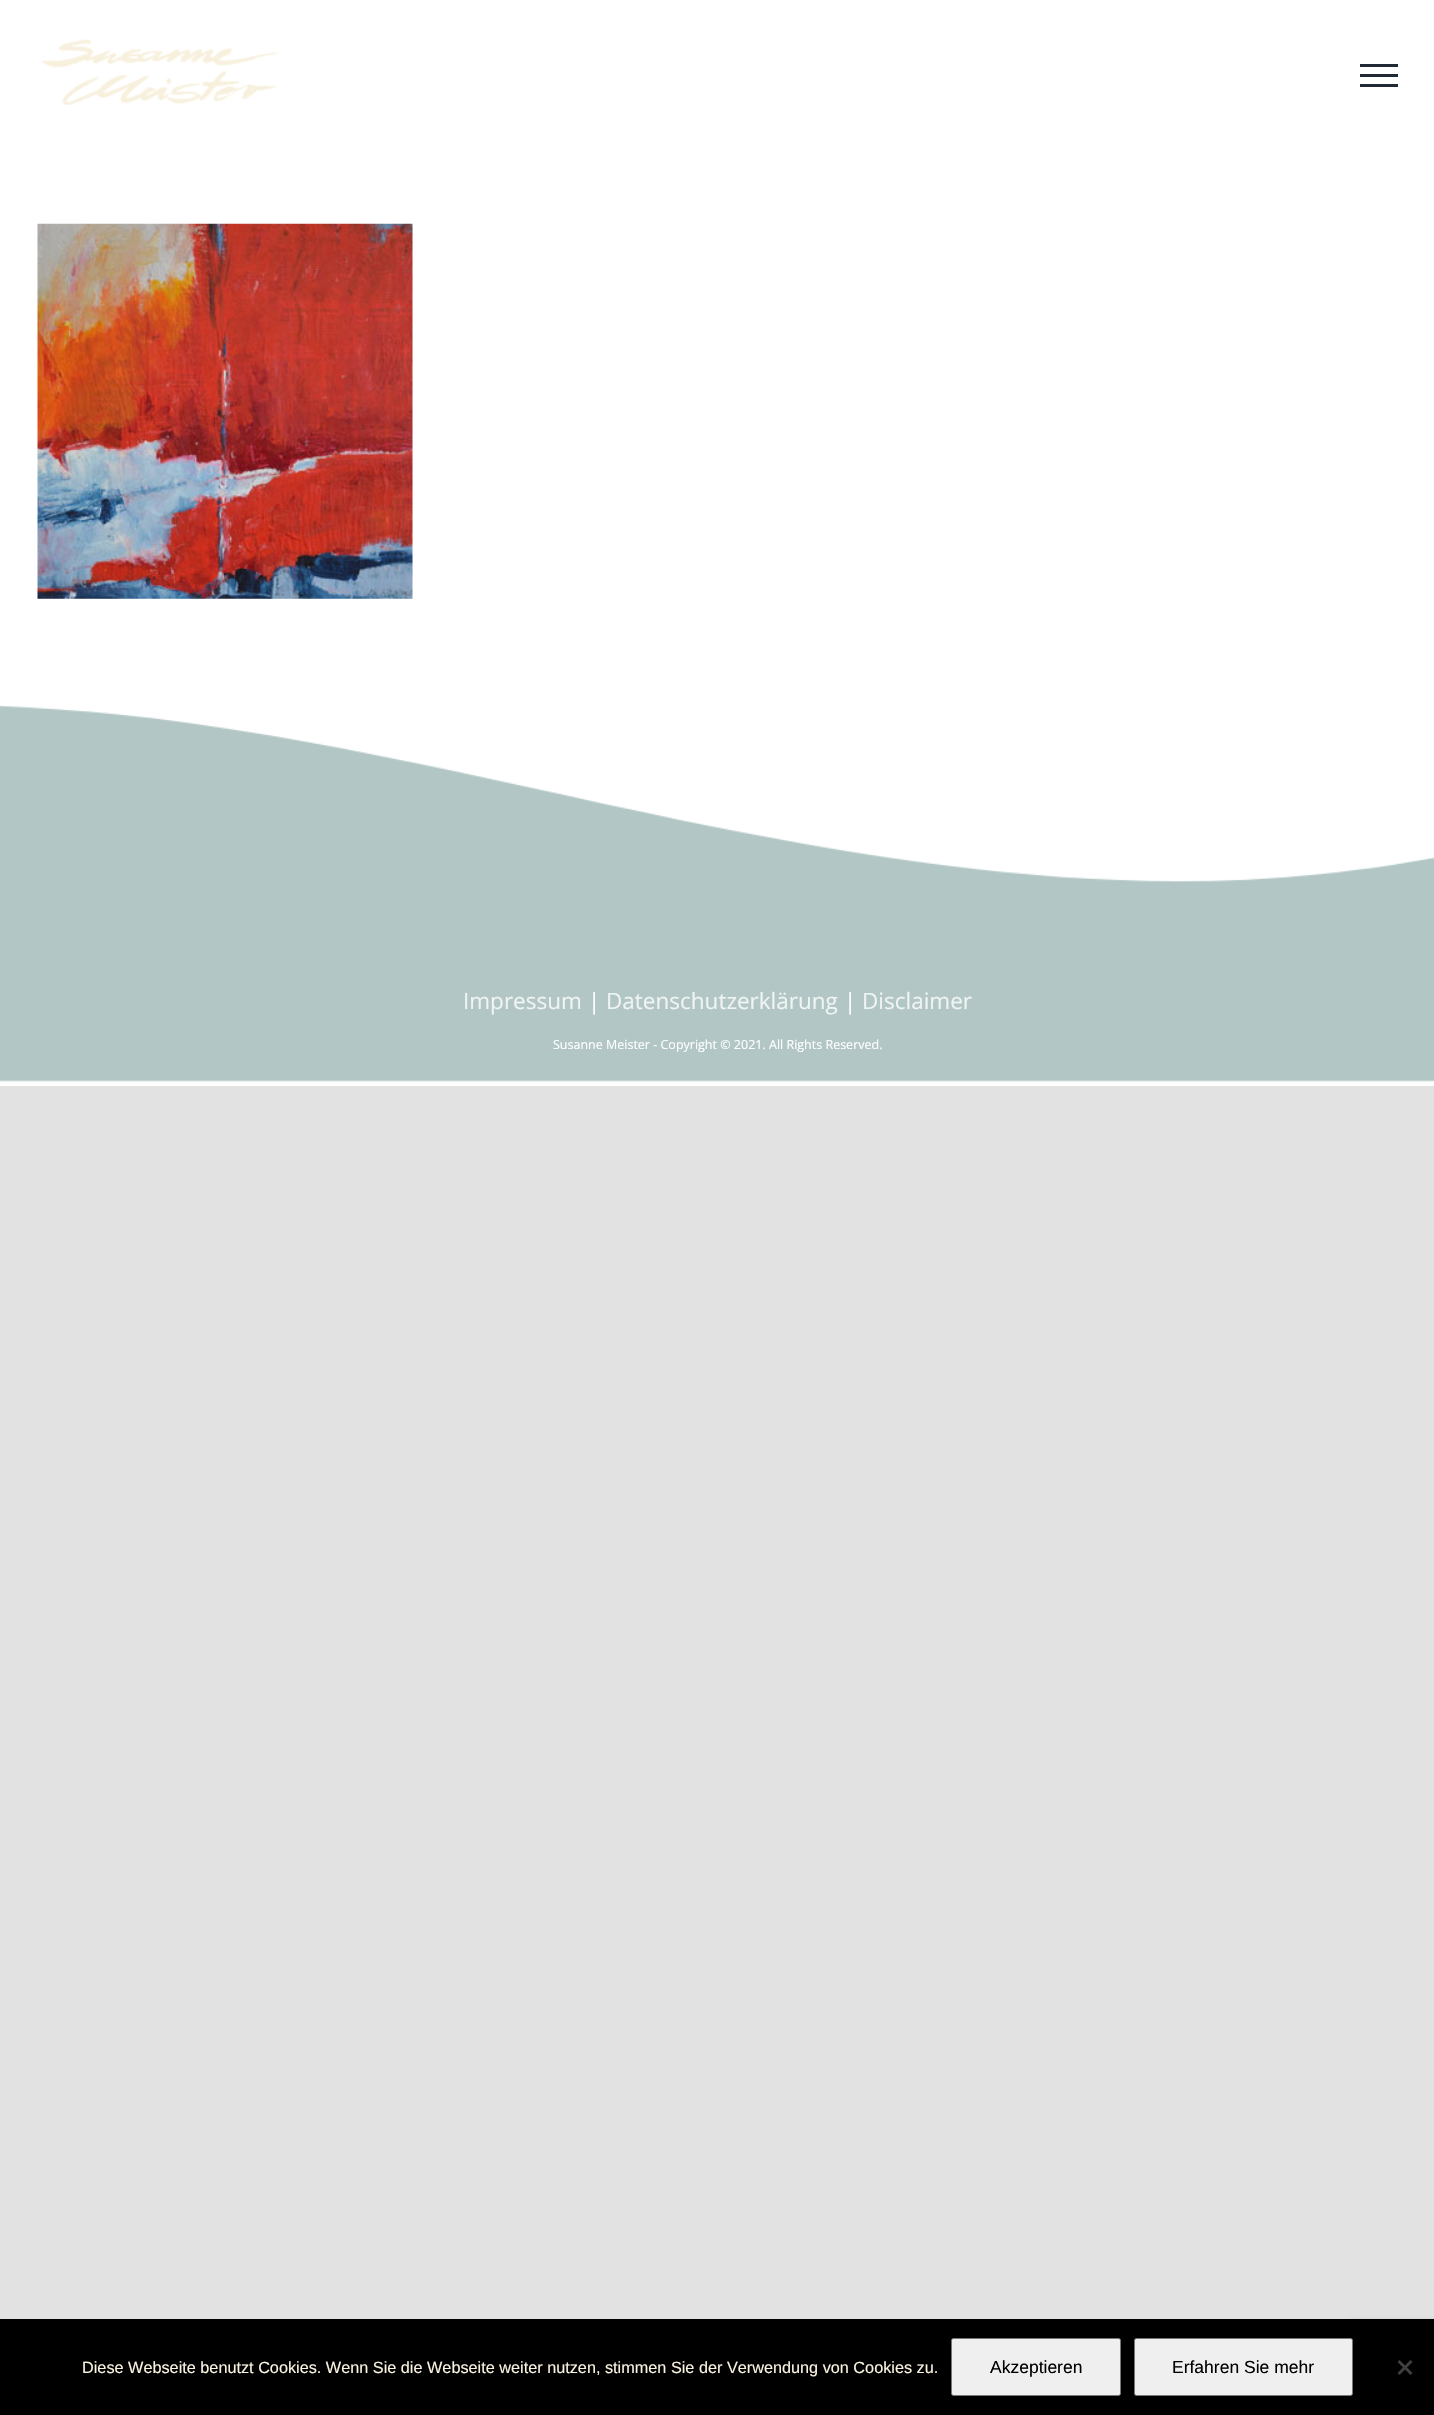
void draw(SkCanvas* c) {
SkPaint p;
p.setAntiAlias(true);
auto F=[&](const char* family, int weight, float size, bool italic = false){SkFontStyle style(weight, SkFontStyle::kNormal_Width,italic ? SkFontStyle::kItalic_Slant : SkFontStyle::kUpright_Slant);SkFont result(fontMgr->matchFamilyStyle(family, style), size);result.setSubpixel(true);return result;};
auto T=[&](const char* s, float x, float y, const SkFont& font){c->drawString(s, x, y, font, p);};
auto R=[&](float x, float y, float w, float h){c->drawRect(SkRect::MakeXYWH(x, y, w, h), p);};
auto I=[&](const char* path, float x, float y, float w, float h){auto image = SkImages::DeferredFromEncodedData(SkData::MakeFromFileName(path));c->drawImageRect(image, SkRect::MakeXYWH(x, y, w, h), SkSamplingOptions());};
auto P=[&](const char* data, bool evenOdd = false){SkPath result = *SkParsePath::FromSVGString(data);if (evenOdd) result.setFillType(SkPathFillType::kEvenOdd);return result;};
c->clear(0xffe2e2e2);
p.setColor(0xffffffff);
R(0,0,1434,1086);
I("1.png",41,39,238,66);
p.setColor(0xff212934);
R(1360,64,38,3);
R(1360,74,38,3);
R(1360,84,38,3);
I("2.png",37,223,376,376);
I("3.png",0,705,1434,377);
auto f1 = F("Open Sans",400,22.5);
p.setColor(0xfff0f4f3);
T("Impressum",463,1009,f1);
p.setColor(0xffffffff);
T("|",588,1009,f1);
p.setColor(0xfff0f4f3);
T("Datenschutzerklärung",606,1009,f1);
p.setColor(0xffffffff);
T("|",844,1009,f1);
p.setColor(0xfff0f4f3);
T("Disclaimer",862,1009,f1);
auto f2 = F("Open Sans",400,12.5);
p.setColor(0xffffffff);
T("Susanne Meister - Copyright © 2021. All Rights Reserved.",553,1049,f2);
p.setColor(0xff808080);
p.setMaskFilter(SkMaskFilter::MakeBlur(kNormal_SkBlurStyle, 3));
c->drawRoundRect(SkRect::MakeXYWH(1348,2323,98,75),2.5,2.5,p);
p.setMaskFilter(nullptr);
p.setColor(0xff000000);
R(0,2319,1434,96);
auto f3 = F("Liberation Sans",400,16.25);
p.setColor(0xfffaf3e0);
T("Diese Webseite benutzt Cookies. Wenn Sie die Webseite weiter nutzen, stimmen Sie der Verwendung von Cookies zu.",82,2373,f3);
p.setColor(0xffefefef);
c->drawRoundRect(SkRect::MakeXYWH(951.5,2338.5,169,57),2,2,p);
p.setStroke(true);
p.setStrokeWidth(1);
p.setColor(0xff767676);
c->drawRoundRect(SkRect::MakeXYWH(951.5,2338.5,169,57),2,2,p);
auto f4 = F("Liberation Sans",400,17.5);
p.setStroke(false);
p.setColor(0xff000000);
T("Akzeptieren",990,2373,f4);
p.setColor(0xffefefef);
c->drawRoundRect(SkRect::MakeXYWH(1134.5,2338.5,218,57),2,2,p);
p.setStroke(true);
p.setColor(0xff767676);
c->drawRoundRect(SkRect::MakeXYWH(1134.5,2338.5,218,57),2,2,p);
p.setStroke(false);
p.setColor(0xff000000);
T("Erfahren Sie mehr",1172,2373,f4);
p.setColor(0xff404040);
c->drawPath(P("M1410.5 2360l2 2l-13 13l-2-2z"),p);
c->drawPath(P("M1397.5 2362l2-2l13 13l-2 2z"),p);
}
